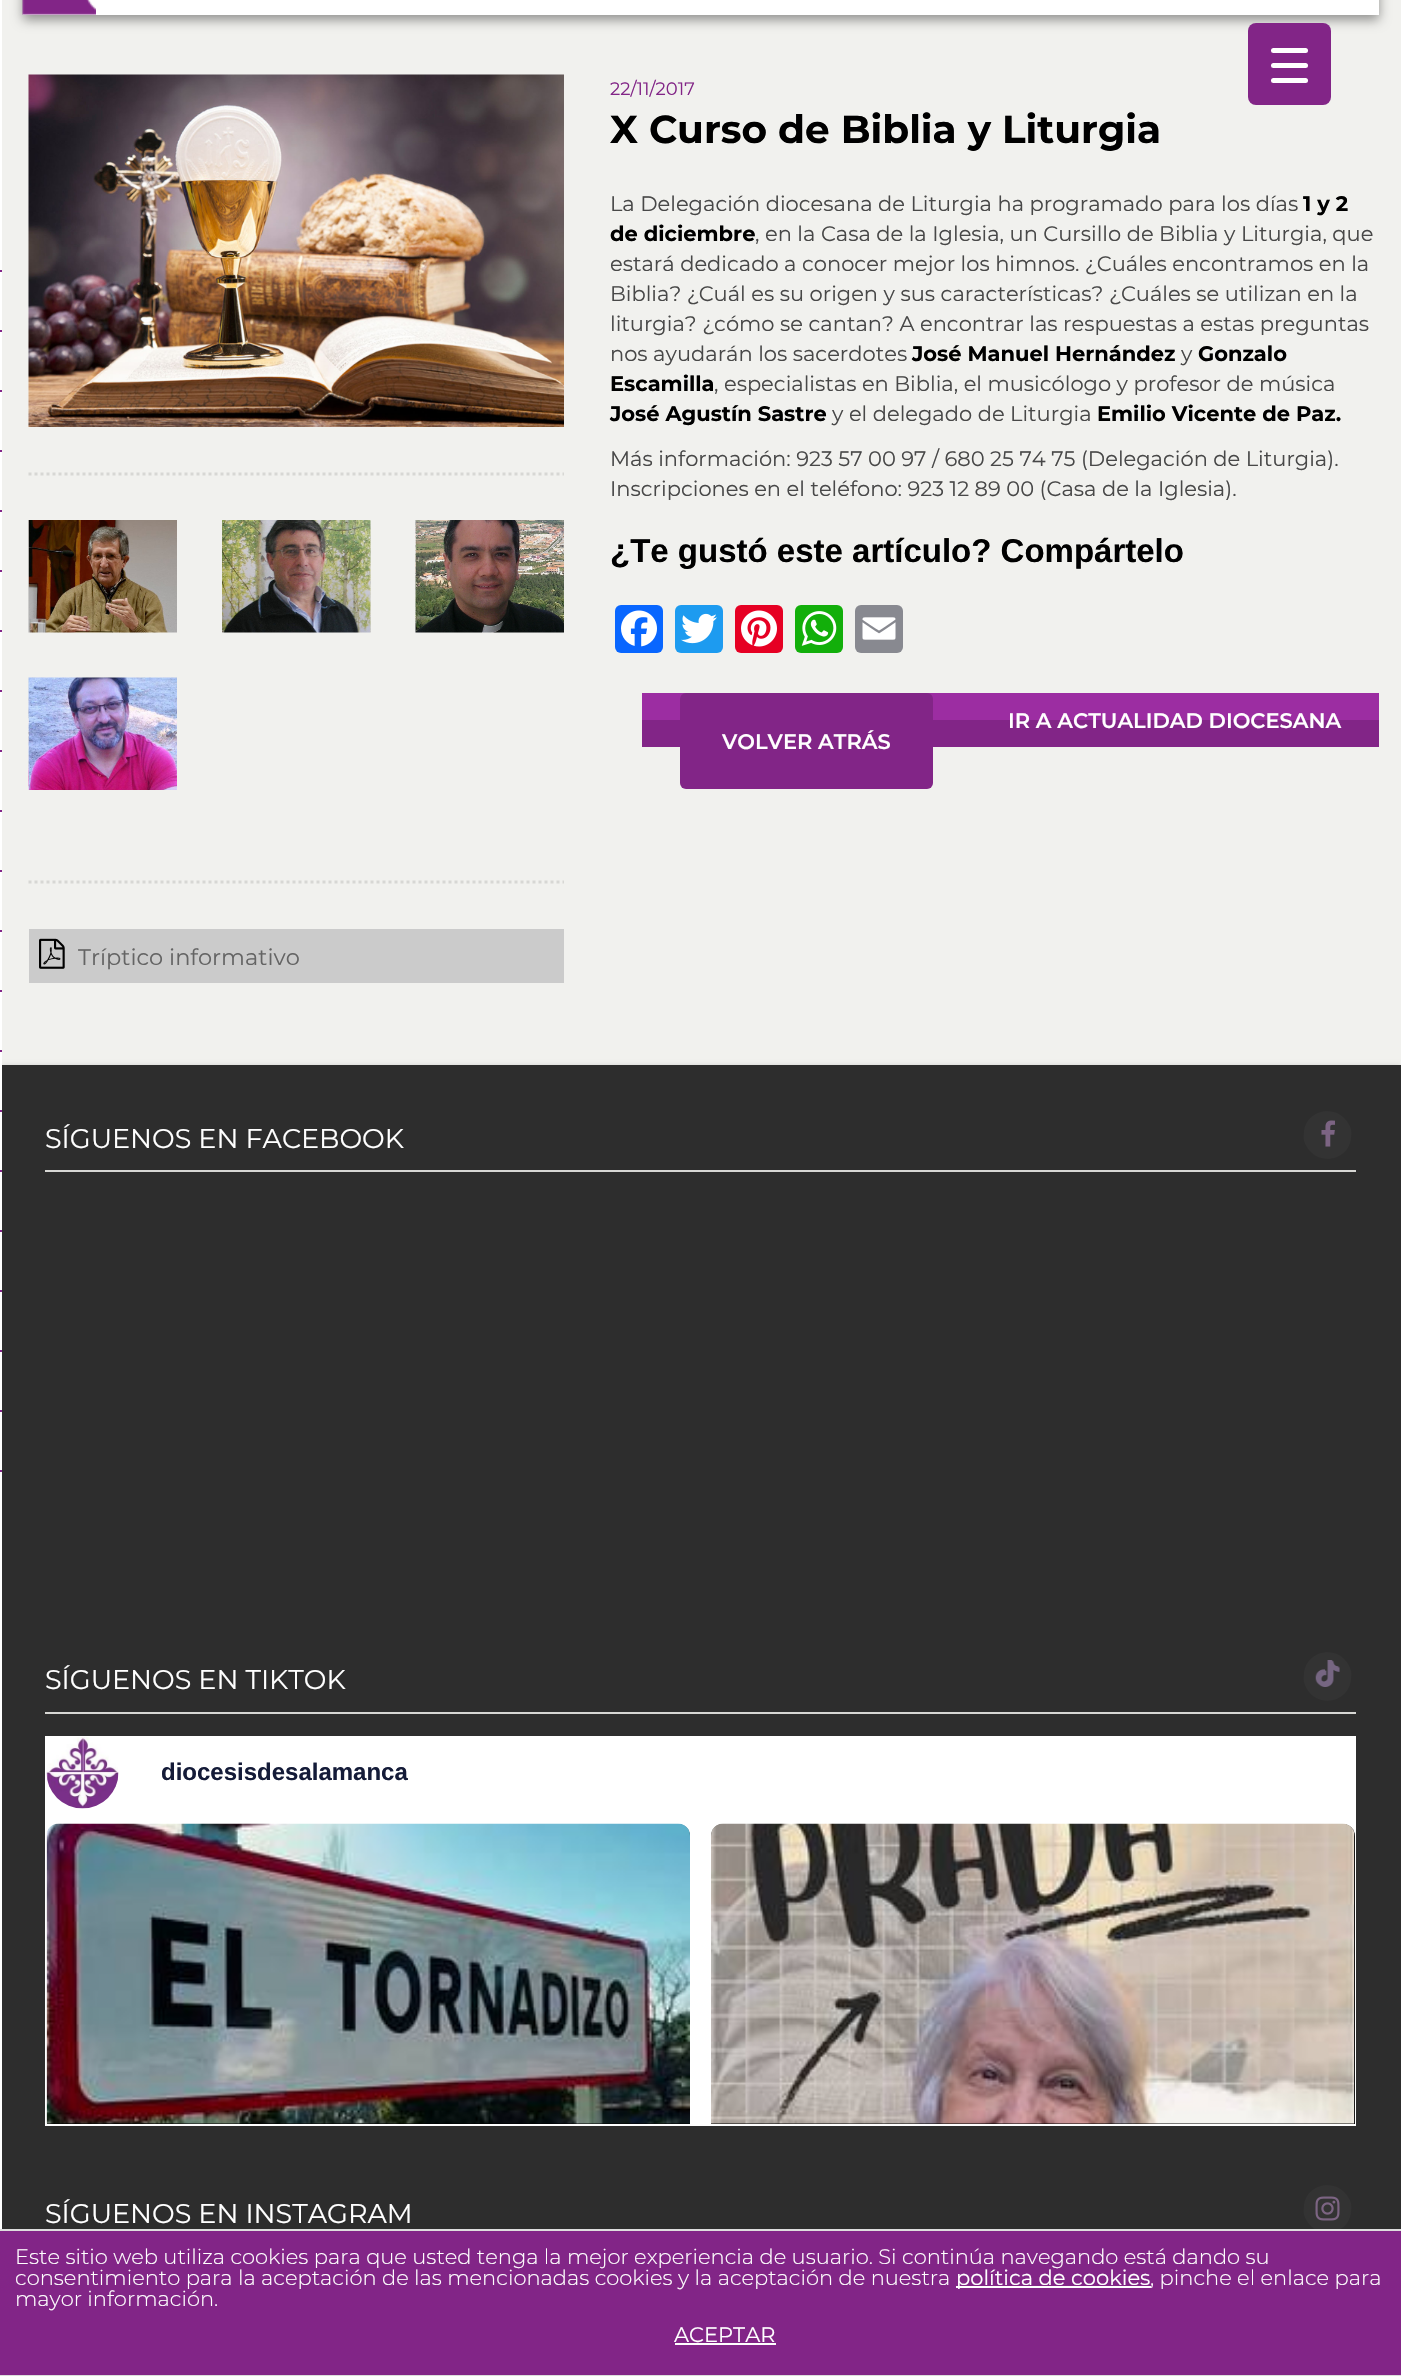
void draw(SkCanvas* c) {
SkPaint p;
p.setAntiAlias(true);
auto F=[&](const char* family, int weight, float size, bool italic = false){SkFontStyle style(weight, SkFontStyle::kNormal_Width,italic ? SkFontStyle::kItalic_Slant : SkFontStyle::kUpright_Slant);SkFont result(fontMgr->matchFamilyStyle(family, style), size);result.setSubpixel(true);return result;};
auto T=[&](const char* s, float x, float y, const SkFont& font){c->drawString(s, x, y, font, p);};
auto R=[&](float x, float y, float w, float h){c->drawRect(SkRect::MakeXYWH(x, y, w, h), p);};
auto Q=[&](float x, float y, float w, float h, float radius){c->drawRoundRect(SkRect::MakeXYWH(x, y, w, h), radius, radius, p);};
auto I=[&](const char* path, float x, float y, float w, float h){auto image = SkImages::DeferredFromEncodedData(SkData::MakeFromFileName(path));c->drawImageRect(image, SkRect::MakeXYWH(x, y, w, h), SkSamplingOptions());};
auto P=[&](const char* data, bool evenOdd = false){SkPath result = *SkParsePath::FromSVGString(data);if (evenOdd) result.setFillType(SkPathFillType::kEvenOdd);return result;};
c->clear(0xfff1f1ee);
p.setColor(0x66000000);
p.setMaskFilter(SkMaskFilter::MakeBlur(kNormal_SkBlurStyle, 3));
c->drawRect(SkRect::MakeXYWH(0,1068,1401,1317),p);
p.setMaskFilter(nullptr);
p.setColor(0xffffffff);
R(0,0,2,2229);
p.setColor(0xff822587);
R(0,270,2,2);
R(0,330,2,2);
R(0,390,2,2);
R(0,450,2,2);
R(0,510,2,2);
R(0,570,2,2);
R(0,630,2,2);
R(0,690,2,2);
R(0,750,2,2);
R(0,810,2,2);
R(0,870,2,2);
R(0,930,2,2);
R(0,990,2,2);
R(0,1050,2,2);
R(0,1110,2,2);
R(0,1170,2,2);
R(0,1230,2,2);
R(0,1290,2,2);
R(0,1350,2,2);
R(0,1410,2,2);
R(0,1470,2,2);
p.setColor(0x66000000);
p.setMaskFilter(SkMaskFilter::MakeBlur(kNormal_SkBlurStyle, 6));
c->drawRect(SkRect::MakeXYWH(23,-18,1356,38),p);
p.setMaskFilter(nullptr);
p.setColor(0xff822587);
Q(1248,23,83,82,8);
p.setColor(0xffffffff);
Q(1271,63,37,5,2.5);
Q(1271,48,37,5,2.5);
Q(1271,78,37,5,2.5);
R(23,0,1356,15);
I("1.png",22,0,74,15);
auto f1 = F("Montserrat",400,18);
p.setColor(0xff822587);
T("22/11/2017",610,95,f1);
auto f2 = F("Montserrat",700,39);
p.setColor(0xff000000);
T("X Curso de Biblia y Liturgia",610,143,f2);
auto f3 = F("Montserrat",400,21);
p.setColor(0xff484848);
T("La Delegación diocesana de Liturgia ha programado para los días",610,211,f3);
auto f4 = F("Montserrat",700,21);
p.setColor(0xff000000);
T("1 y 2",1303,211,f4);
T("de diciembre",610,241,f4);
p.setColor(0xff484848);
T(", en la Casa de la Iglesia, un Cursillo de Biblia y Liturgia, que",755,241,f3);
T("estará dedicado a conocer mejor los himnos. ¿Cuáles encontramos en la",610,271,f3);
T("Biblia? ¿Cuál es su origen y sus características? ¿Cuáles se utilizan en la",610,301,f3);
T("liturgia? ¿cómo se cantan? A encontrar las respuestas a estas preguntas",610,331,f3);
T("nos ayudarán los sacerdotes",610,361,f3);
p.setColor(0xff000000);
T("José Manuel Hernández",912,361,f4);
p.setColor(0xff484848);
T("y",1181,361,f3);
p.setColor(0xff000000);
T("Gonzalo",1198,361,f4);
T("Escamilla",610,391,f4);
p.setColor(0xff484848);
T(", especialistas en Biblia, el musicólogo y profesor de música",714,391,f3);
p.setColor(0xff000000);
T("José Agustín Sastre",610,421,f4);
p.setColor(0xff484848);
T("y el delegado de Liturgia",832,421,f3);
p.setColor(0xff000000);
T("Emilio Vicente de Paz.",1097,421,f4);
p.setColor(0xff484848);
T("Más información: 923 57 00 97 / 680 25 74 75 (Delegación de Liturgia).",610,466,f3);
T("Inscripciones en el teléfono: 923 12 89 00 (Casa de la Iglesia).",610,496,f3);
auto f5 = F("Liberation Sans",700,33);
p.setColor(0xff000000);
T("¿Te gustó este artículo? Compártelo",610,562,f5);
p.setColor(0xff0866ff);
Q(615,605,48,48,6);
I("2.png",621,610,36,37);
p.setColor(0xff1d9bf0);
Q(675,605,48,48,6);
I("3.png",681,613,36,31);
p.setColor(0xffe60023);
Q(735,605,48,48,6);
I("4.png",741,610,36,37);
p.setColor(0xff12af0a);
Q(795,605,48,48,6);
I("5.png",801,611,36,35);
p.setColor(0xff888990);
Q(855,605,48,48,6);
I("6.png",862,617,34,23);
p.setColor(0xff9c2da2);
R(642,693,737,27);
p.setColor(0xff822587);
R(642,720,737,27);
auto f6 = F("Montserrat",600,21);
p.setColor(0xffffffff);
T("IR A ACTUALIDAD DIOCESANA",1008,728,f6);
p.setColor(0xff822587);
Q(680,693,253,96,6);
p.setColor(0xffffffff);
T("VOLVER ATRÁS",722,749,f6);
I("7.png",28,74,536,353);
p.setStroke(true);
p.setStrokeWidth(3);
p.setColor(0xffd7d7d4);
p.setPathEffect(SkDashPathEffect::Make({{3,3}}, 0));
c->drawPath(P("M28.5 474h535.5"),p);
p.setPathEffect(nullptr);
I("8.png",28,520,149,113);
I("9.png",222,520,149,113);
I("10.png",415,520,149,113);
I("11.png",28,677,149,113);
p.setPathEffect(SkDashPathEffect::Make({{3,3}}, 0));
c->drawPath(P("M28.5 882h535.5"),p);
p.setPathEffect(nullptr);
p.setStroke(false);
p.setColor(0xffcbcbcb);
R(29,929,535,54);
I("12.png",39,938,26,31);
auto f7 = F("Montserrat",400,22.5);
p.setColor(0xff646464);
T("Tríptico informativo",78,965,f7);
p.setColor(0xff2d2d2d);
R(2,1065,1399,1164);
p.setColor(0xffd7d7d4);
R(45,1170,1311,2);
auto f8 = F("Montserrat",400,27);
p.setColor(0xffffffff);
T("SÍGUENOS EN FACEBOOK",45,1148,f8);
p.setColor(0xff333333);
c->drawPath(P("M1348 1123c3 4 4 9 3 14c-1 23-32 30-44 10c-3-4-4-9-3-14c1-23 32-30 44-10z"),p);
I("13.png",1321,1120,14,27);
p.setColor(0xffd7d7d4);
R(45,1712,1311,2);
p.setColor(0xffffffff);
T("SÍGUENOS EN TIKTOK",45,1689,f8);
p.setColor(0xff333333);
c->drawPath(P("M1348 1664c3 5 4 9 3 14c-1 24-32 31-44 11c-3-5-4-9-3-14c1-24 32-31 44-11z"),p);
I("14.png",1315,1660,25,27);
p.setColor(0xffffffff);
R(45,1736,1311,390);
I("15.png",46,1737,73,72);
auto f9 = F("Liberation Sans",700,24);
p.setColor(0xff141b38);
T("diocesisdesalamanca",161,1780,f9);
p.setColor(0xff000000);
c->drawPath(P("M59 1824h619c6.5 0 12 5.5 12 12v288h-643v-288c0-6.5 5.5-12 12-12z"),p);
I("16.png",46,1823,644,301);
c->drawPath(P("M723 1824h620c6.5 0 12 5.5 12 12v288h-644v-288c0-6.5 5.5-12 12-12z"),p);
I("17.png",711,1823,644,301);
p.setColor(0xffffffff);
T("SÍGUENOS EN INSTAGRAM",45,2223,f8);
p.setColor(0xff333333);
c->drawPath(P("M1348 2197c3 4 4 9 3 14c-1 23-32 30-44 10c-3-4-4-9-3-14c1-23 32-30 44-10z"),p);
I("18.png",1315,2196,25,25);
p.setColor(0xff822587);
R(0,2231,1401,144);
p.setColor(0xffdddddd);
R(0,2229,1401,2);
R(0,2375,1401,1);
auto f10 = F("Montserrat",300,21);
p.setColor(0xffffffff);
T("Este sitio web utiliza cookies para que usted tenga la mejor experiencia de usuario. Si continúa navegando está dando su",15,2264,f10);
T("consentimiento para la aceptación de las mencionadas cookies y la aceptación de nuestra",15,2285,f10);
R(956,2286,195,2);
T("política de cookies",956,2285,f3);
T(", pinche el enlace para",1150,2285,f10);
T("mayor información.",15,2306,f10);
T("ACEPTAR",674,2342,f3);
R(675,2343,101,2);
}
